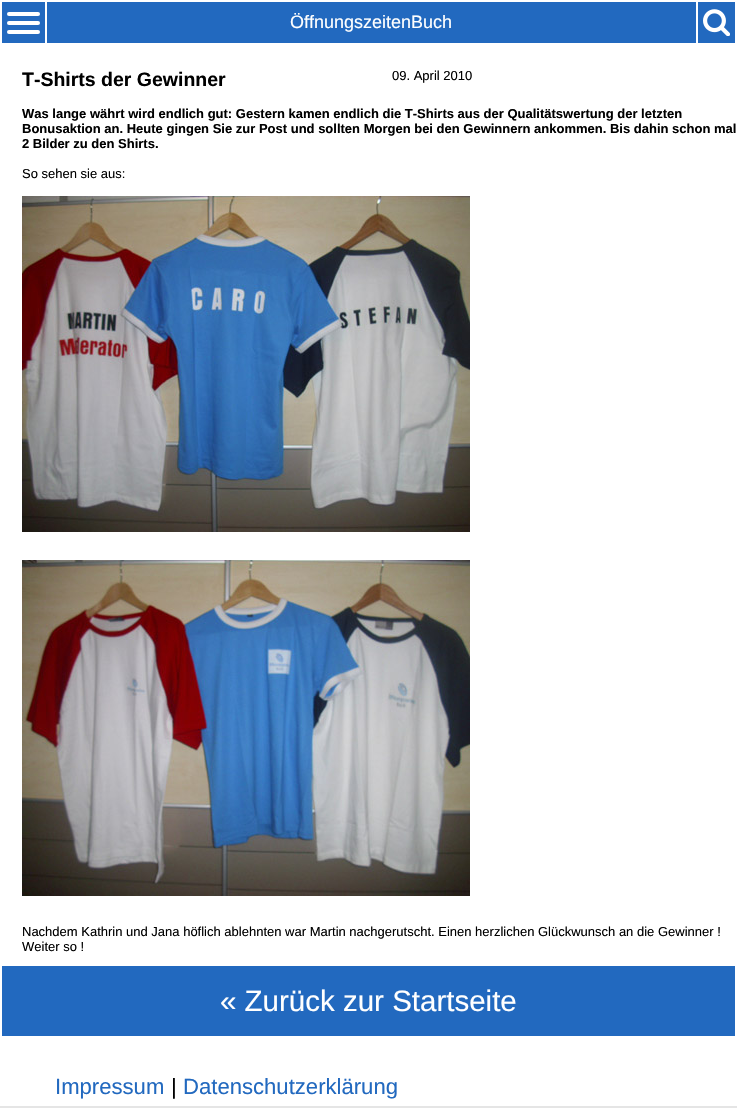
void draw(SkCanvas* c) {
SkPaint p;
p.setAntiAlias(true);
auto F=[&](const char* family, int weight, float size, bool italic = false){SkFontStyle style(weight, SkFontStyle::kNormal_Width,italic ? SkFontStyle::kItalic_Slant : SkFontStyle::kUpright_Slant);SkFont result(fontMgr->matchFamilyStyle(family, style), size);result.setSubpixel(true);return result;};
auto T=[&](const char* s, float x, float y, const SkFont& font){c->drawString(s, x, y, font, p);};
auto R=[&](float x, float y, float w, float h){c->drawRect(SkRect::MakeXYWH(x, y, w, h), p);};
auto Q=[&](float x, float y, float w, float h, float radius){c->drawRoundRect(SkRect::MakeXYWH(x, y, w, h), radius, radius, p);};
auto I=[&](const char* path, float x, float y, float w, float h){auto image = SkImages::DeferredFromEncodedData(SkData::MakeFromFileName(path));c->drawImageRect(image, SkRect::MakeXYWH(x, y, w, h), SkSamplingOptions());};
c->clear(0xffffffff);
p.setColor(0xff2269bf);
R(2,2,43,41);
p.setColor(0xffffffff);
Q(7,12,33,4,2);
Q(7,21,33,4,2);
Q(7,30,33,4,2);
p.setColor(0xff2269bf);
R(47,2,649,41);
auto f1 = F("Liberation Sans",400,18);
p.setColor(0xffffffff);
T("ÖffnungszeitenBuch",290,28,f1);
p.setColor(0xff2269bf);
R(698,2,37,41);
I("1.png",703,9,27,27);
auto f2 = F("Liberation Sans",700,19.5);
p.setColor(0xff000000);
T("T-Shirts der Gewinner",22,86,f2);
auto f3 = F("Liberation Sans",400,13);
T("09. April 2010",392,80,f3);
auto f4 = F("Liberation Sans",700,13);
T("Was lange währt wird endlich gut: Gestern kamen endlich die T-Shirts aus der Qualitätswertung der letzten",22,118,f4);
T("Bonusaktion an. Heute gingen Sie zur Post und sollten Morgen bei den Gewinnern ankommen. Bis dahin schon mal",22,133,f4);
T("2 Bilder zu den Shirts.",22,148,f4);
T("So sehen sie aus:",22,178,f3);
I("2.png",22,196,448,336);
I("3.png",22,560,448,336);
T("Nachdem Kathrin und Jana höflich ablehnten war Martin nachgerutscht. Einen herzlichen Glückwunsch an die Gewinner !",22,936,f3);
T("Weiter so !",22,951,f3);
p.setColor(0xff2269bf);
R(2,966,733,70);
auto f5 = F("Liberation Sans",400,29.5);
p.setColor(0xffffffff);
T("« Zurück zur Startseite",220,1011,f5);
auto f6 = F("Liberation Sans",400,22.1);
p.setColor(0xff2269bf);
T("Impressum",55,1094,f6);
p.setColor(0xff000000);
T("|",171,1094,f6);
p.setColor(0xff2269bf);
T("Datenschutzerklärung",183,1094,f6);
p.setColor(0x1a000000);
R(0,1106,737,2);
}
